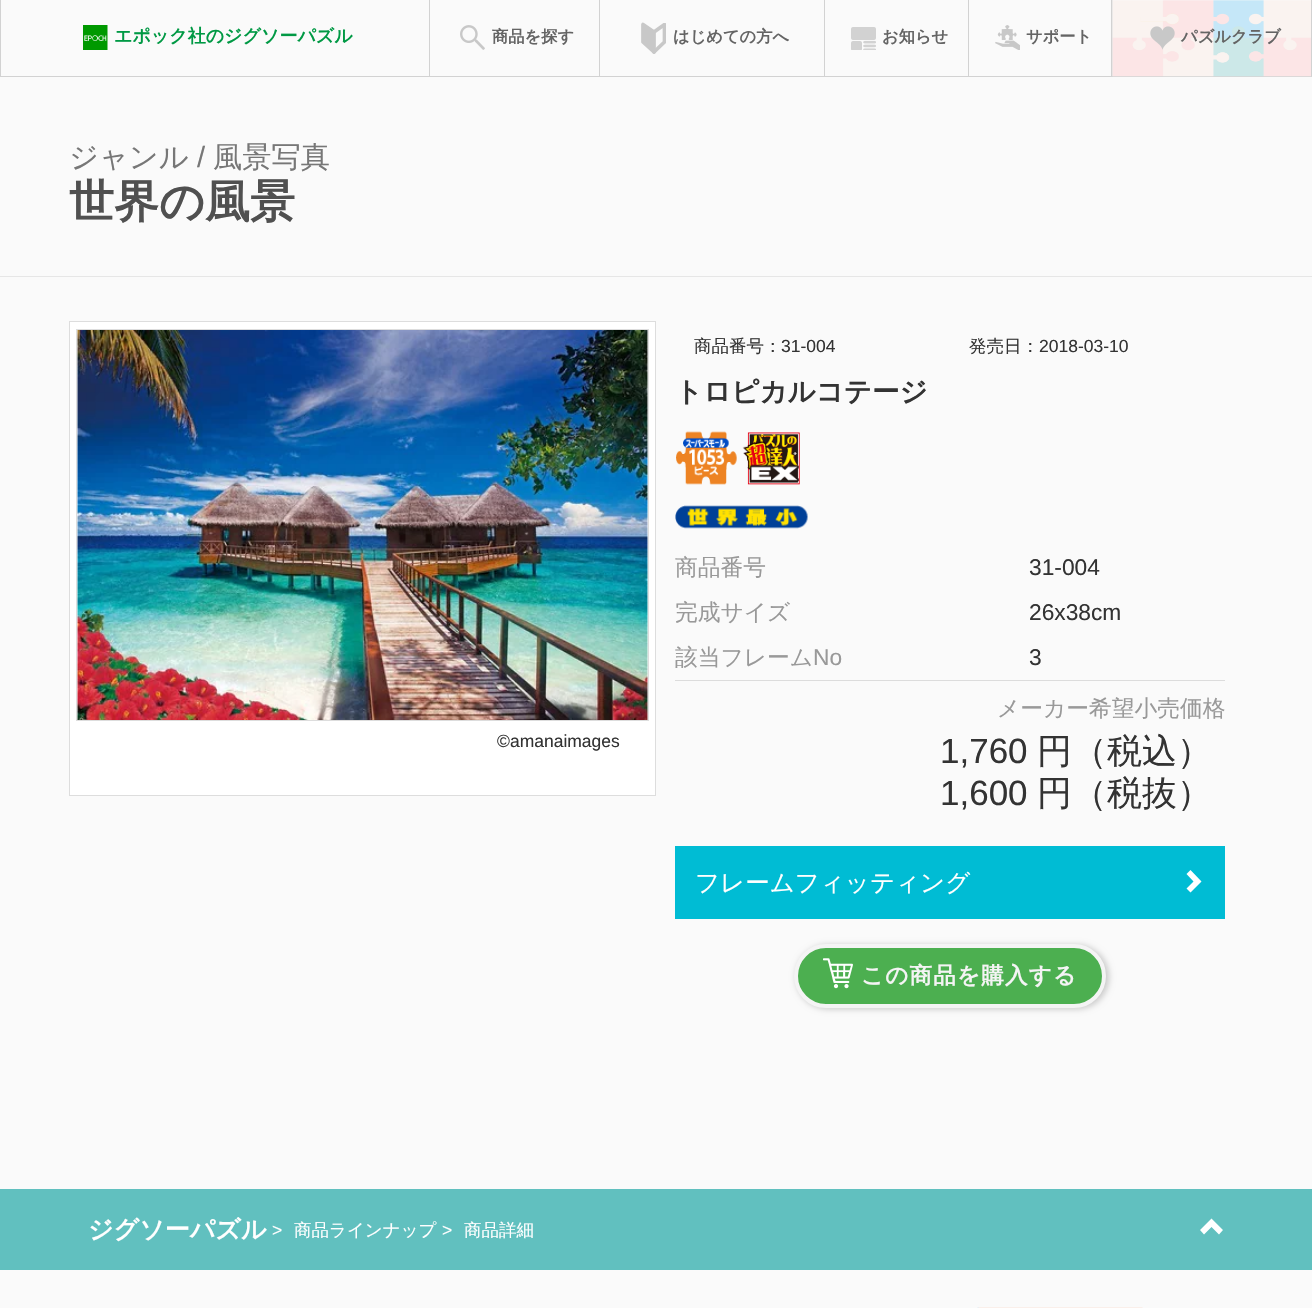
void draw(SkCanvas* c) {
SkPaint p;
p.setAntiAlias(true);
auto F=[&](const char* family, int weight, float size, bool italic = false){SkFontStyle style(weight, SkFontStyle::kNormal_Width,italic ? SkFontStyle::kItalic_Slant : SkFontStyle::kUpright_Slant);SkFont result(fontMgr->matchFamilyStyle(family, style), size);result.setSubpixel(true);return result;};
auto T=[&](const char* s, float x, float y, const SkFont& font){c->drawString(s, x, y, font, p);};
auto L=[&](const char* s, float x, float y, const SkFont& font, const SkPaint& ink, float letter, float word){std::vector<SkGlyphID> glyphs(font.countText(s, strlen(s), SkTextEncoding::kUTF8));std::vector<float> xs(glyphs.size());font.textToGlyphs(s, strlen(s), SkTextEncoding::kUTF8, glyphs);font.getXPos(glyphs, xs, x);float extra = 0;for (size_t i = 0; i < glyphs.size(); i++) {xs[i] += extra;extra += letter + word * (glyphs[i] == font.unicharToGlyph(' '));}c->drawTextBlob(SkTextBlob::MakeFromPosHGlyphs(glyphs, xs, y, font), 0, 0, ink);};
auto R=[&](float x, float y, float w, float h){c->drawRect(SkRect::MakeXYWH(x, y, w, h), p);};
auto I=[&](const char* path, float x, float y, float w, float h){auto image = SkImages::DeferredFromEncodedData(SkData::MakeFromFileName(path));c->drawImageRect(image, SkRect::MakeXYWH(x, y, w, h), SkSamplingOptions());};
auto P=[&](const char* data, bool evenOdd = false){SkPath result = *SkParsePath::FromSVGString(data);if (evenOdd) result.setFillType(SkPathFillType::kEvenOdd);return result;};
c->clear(0xfffafafa);
p.setColor(0xffd2d2d2);
R(0,76,1312,1);
R(0,0,1,76);
I("1.png",83,25,25,25);
auto f1 = F("WenQuanYi Zen Hei",700,18);
p.setColor(0xff009944);
T("エポック社のジグソーパズル",114,42,f1);
p.setColor(0xffd2d2d2);
R(429,0,1,76);
I("2.png",460,25,25,25);
auto f2 = F("WenQuanYi Zen Hei",700,16.25);
p.setColor(0xff646464);
T("商品を探す",492,42,f2);
p.setColor(0xffd2d2d2);
R(599,0,1,76);
c->save();
c->clipRect(SkRect::MakeXYWH(641,23,25,31));
p.setStroke(true);
p.setStrokeWidth(3.7);
p.setStrokeCap(SkPaint::kRound_Cap);
p.setStrokeJoin(SkPaint::kRound_Join);
p.setColor(0xffc8c8c8);
c->drawPath(P("M654 32l10.5-7.5v17.5l-10.5 10"),p);
c->restore();
p.setStroke(false);
c->drawPath(P("M654 32l-11-7.5v17.5l11 10z"),p);
p.setStroke(true);
c->drawPath(P("M654 32l-11-7.5v17.5l11 10z"),p);
p.setStroke(false);
p.setColor(0xff646464);
T("はじめての方へ",673,42,f2);
p.setColor(0xffd2d2d2);
R(824,0,1,76);
I("3.png",851,27,25,23);
p.setColor(0xff646464);
T("お知らせ",882,42,f2);
p.setColor(0xffd2d2d2);
R(968,0,1,76);
I("4.png",995,25,25,25);
p.setColor(0xff646464);
T("サポート",1026,42,f2);
p.setColor(0xffdddddd);
R(1112,0,1,76);
I("5.png",1112,0,200,77);
p.setColor(0xffd2d2d2);
R(1311,0,1,76);
R(1111,0,1,76);
I("6.png",1150,26,25,24);
p.setColor(0xff646464);
T("パズルクラブ",1181,42,f2);
p.setColor(0xffe6e6e6);
R(0,276,1312,1);
auto f3 = F("WenQuanYi Zen Hei",500,29.25);
p.setColor(0xff777777);
T("ジャンル",69,167,f3);
auto f4 = F("Liberation Sans",400,29.25);
T("/",197,167,f4);
T("風景写真",213,167,f3);
auto f5 = F("WenQuanYi Zen Hei",700,45);
p.setColor(0xff505050);
T("世界の風景",69,217,f5);
p.setColor(0xffffffff);
c->drawRect(SkRect::MakeXYWH(69.5,321.5,586,474),p);
p.setStroke(true);
p.setStrokeWidth(1);
p.setStrokeCap(SkPaint::kButt_Cap);
p.setStrokeJoin(SkPaint::kMiter_Join);
p.setColor(0xffdddddd);
c->drawRect(SkRect::MakeXYWH(69.5,321.5,586,474),p);
c->drawRect(SkRect::MakeXYWH(76.5,329.5,572,391),p);
I("7.png",77,330,571,390);
auto f6 = F("Liberation Sans",400,17.5);
p.setStroke(false);
p.setColor(0xff333333);
T("©amanaimages",497,747,f6);
auto f7 = F("WenQuanYi Zen Hei",500,17.5);
T("商品番号：",694,352,f7);
T("31-004",781,352,f6);
T("発売日：",969,352,f7);
T("2018-03-10",1039,352,f6);
auto f8 = F("WenQuanYi Zen Hei",700,27.5);
T("トロピカルコテージ",675,401,f8);
I("8.png",676,431,61,54);
I("9.png",742,432,58,53);
I("10.png",675,505,133,24);
auto f9 = F("WenQuanYi Zen Hei",500,22.75);
p.setColor(0xff999999);
T("商品番号",675,575,f9);
auto f10 = F("Liberation Sans",400,22.75);
p.setColor(0xff333333);
T("31-004",1029,575,f10);
p.setColor(0xff999999);
T("完成サイズ",675,620,f9);
p.setColor(0xff333333);
T("26x38cm",1029,620,f10);
p.setColor(0xff999999);
T("該当フレーム",675,665,f9);
T("No",813,665,f10);
p.setColor(0xff333333);
T("3",1029,665,f10);
p.setColor(0xffdcdcdc);
R(675,680,550,1);
p.setColor(0xff999999);
T("メーカー希望小売価格",997,716,f9);
auto f11 = F("Liberation Sans",400,35);
p.setColor(0xff333333);
T("1,760",940,763,f11);
auto f12 = F("WenQuanYi Zen Hei",500,35);
T("円（税込）",1037,763,f12);
T("1,600",940,805,f11);
T("円（税抜）",1037,805,f12);
p.setColor(0xff00bcd4);
R(675,846,550,73);
auto f13 = F("WenQuanYi Zen Hei",500,24.5);
p.setColor(0xffffffff);
T("フレームフィッティング",695,891,f13);
c->drawPath(P("M1201.5 881.5l-11 11l-4-4l7-7l-7-7.5l4-4z"),p);
p.setColor(0x33000000);
p.setMaskFilter(SkMaskFilter::MakeBlur(kNormal_SkBlurStyle, 3));
c->drawRoundRect(SkRect::MakeXYWH(796,945,313,64),32,32,p);
p.setMaskFilter(nullptr);
p.setColor(0xff4caf50);
c->drawRoundRect(SkRect::MakeXYWH(796,946,308,60),30,30,p);
p.setStroke(true);
p.setStrokeWidth(4);
p.setColor(0xfff4f4f4);
c->drawRoundRect(SkRect::MakeXYWH(796,946,308,60),30,30,p);
I("11.png",823,958,30,31);
auto f14 = F("WenQuanYi Zen Hei",700,22.5);
p.setStroke(false);
L("この商品を購入する",861,983,f14,p,1.25,0);
p.setColor(0xff61c0bf);
R(0,1189,1312,81);
auto f15 = F("WenQuanYi Zen Hei",700,25);
p.setColor(0xffffffff);
T("ジグソーパズル",88,1238,f15);
T(">",272,1236,f6);
T("商品ラインナップ",294,1236,f7);
T(">",442,1236,f6);
T("商品詳細",464,1236,f7);
c->drawPath(P("M1223 1230l-4 4.5l-7.5-7.5l-7.5 7.5l-4-4.5l11.5-11.5z"),p);
I("12.png",977,1307,166,1);
}
